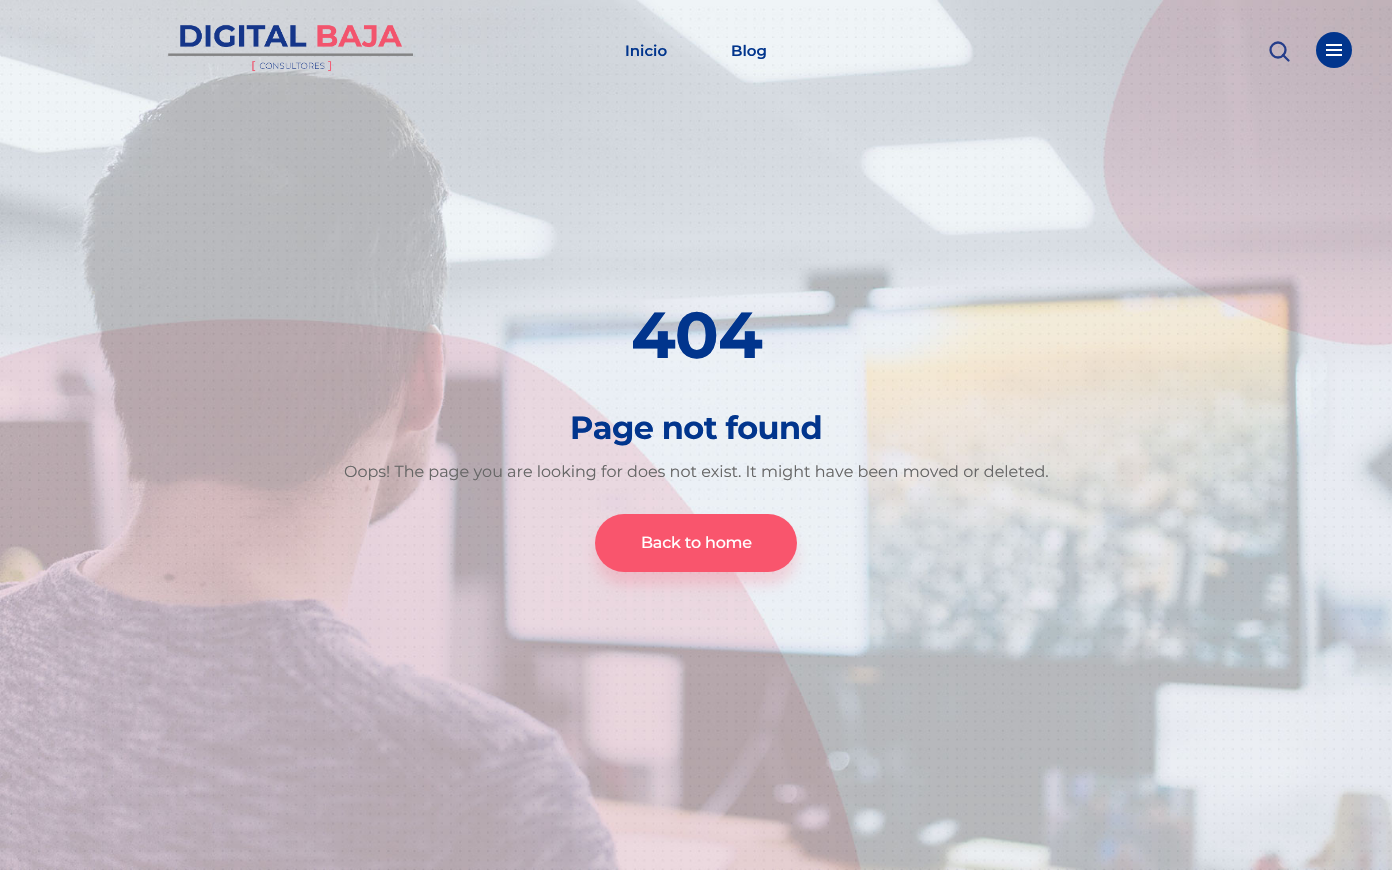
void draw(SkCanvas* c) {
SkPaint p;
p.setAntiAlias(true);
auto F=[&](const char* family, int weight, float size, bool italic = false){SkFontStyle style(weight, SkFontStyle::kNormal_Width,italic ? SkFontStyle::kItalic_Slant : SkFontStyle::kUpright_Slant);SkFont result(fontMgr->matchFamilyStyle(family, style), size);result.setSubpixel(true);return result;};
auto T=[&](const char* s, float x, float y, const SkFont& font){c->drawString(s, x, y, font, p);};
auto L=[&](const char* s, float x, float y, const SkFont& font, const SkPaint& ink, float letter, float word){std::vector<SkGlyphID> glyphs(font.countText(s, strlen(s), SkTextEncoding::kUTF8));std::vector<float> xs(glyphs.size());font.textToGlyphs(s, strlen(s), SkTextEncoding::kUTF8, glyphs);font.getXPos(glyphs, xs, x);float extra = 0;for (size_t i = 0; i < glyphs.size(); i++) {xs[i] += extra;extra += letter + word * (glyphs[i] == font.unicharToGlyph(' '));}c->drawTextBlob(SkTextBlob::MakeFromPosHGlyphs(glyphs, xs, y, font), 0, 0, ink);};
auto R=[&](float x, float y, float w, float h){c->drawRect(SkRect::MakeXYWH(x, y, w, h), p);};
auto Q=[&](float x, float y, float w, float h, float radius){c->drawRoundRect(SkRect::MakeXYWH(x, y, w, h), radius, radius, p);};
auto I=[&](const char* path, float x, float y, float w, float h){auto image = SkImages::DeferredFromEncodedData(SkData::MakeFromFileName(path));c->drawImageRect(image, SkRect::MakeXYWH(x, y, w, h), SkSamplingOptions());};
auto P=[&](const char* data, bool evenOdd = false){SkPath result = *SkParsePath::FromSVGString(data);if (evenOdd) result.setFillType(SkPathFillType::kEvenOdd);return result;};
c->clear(0xffffffff);
I("2.png",0,0,1392,870);
I("1.png",168,24,245,48);
auto f1 = F("Montserrat",600,15);
p.setColor(0xff01358d);
T("Inicio",625,56,f1);
T("Blog",731,56,f1);
p.setStroke(true);
p.setStrokeWidth(2.3);
p.setColor(0xff253d8a);
c->drawCircle(1278,50,7.5,p);
p.setStrokeCap(SkPaint::kRound_Cap);
p.setStrokeJoin(SkPaint::kRound_Join);
c->drawPath(P("M1283 55l5.5 5.5"),p);
p.setStroke(false);
p.setColor(0xff01358d);
c->drawCircle(1334,50,18,p);
p.setColor(0xffffffff);
R(1326,44,16,2);
R(1326,49,16,2);
R(1326,54,16,2);
auto f2 = F("Montserrat",700,65);
p.setColor(0xff01358d);
L("404",631,358,f2,p,-1,0);
auto f3 = F("Montserrat",700,32);
L("Page not found",570,439,f3,p,-.6,0);
auto f4 = F("Montserrat",400,16);
p.setColor(0xff666666);
T("Oops! The page you are looking for does not exist. It might have been moved or deleted.",344,477,f4);
p.setColor(0x33f9556d);
p.setMaskFilter(SkMaskFilter::MakeBlur(kNormal_SkBlurStyle, 6.5));
c->drawRoundRect(SkRect::MakeXYWH(595,527,202,58),29,29,p);
p.setMaskFilter(nullptr);
p.setColor(0xfff9556d);
Q(595,514,202,58,29);
auto f5 = F("Montserrat",500,16);
p.setColor(0xffffffff);
L("Back to home",641,548,f5,p,-.25,0);
}
